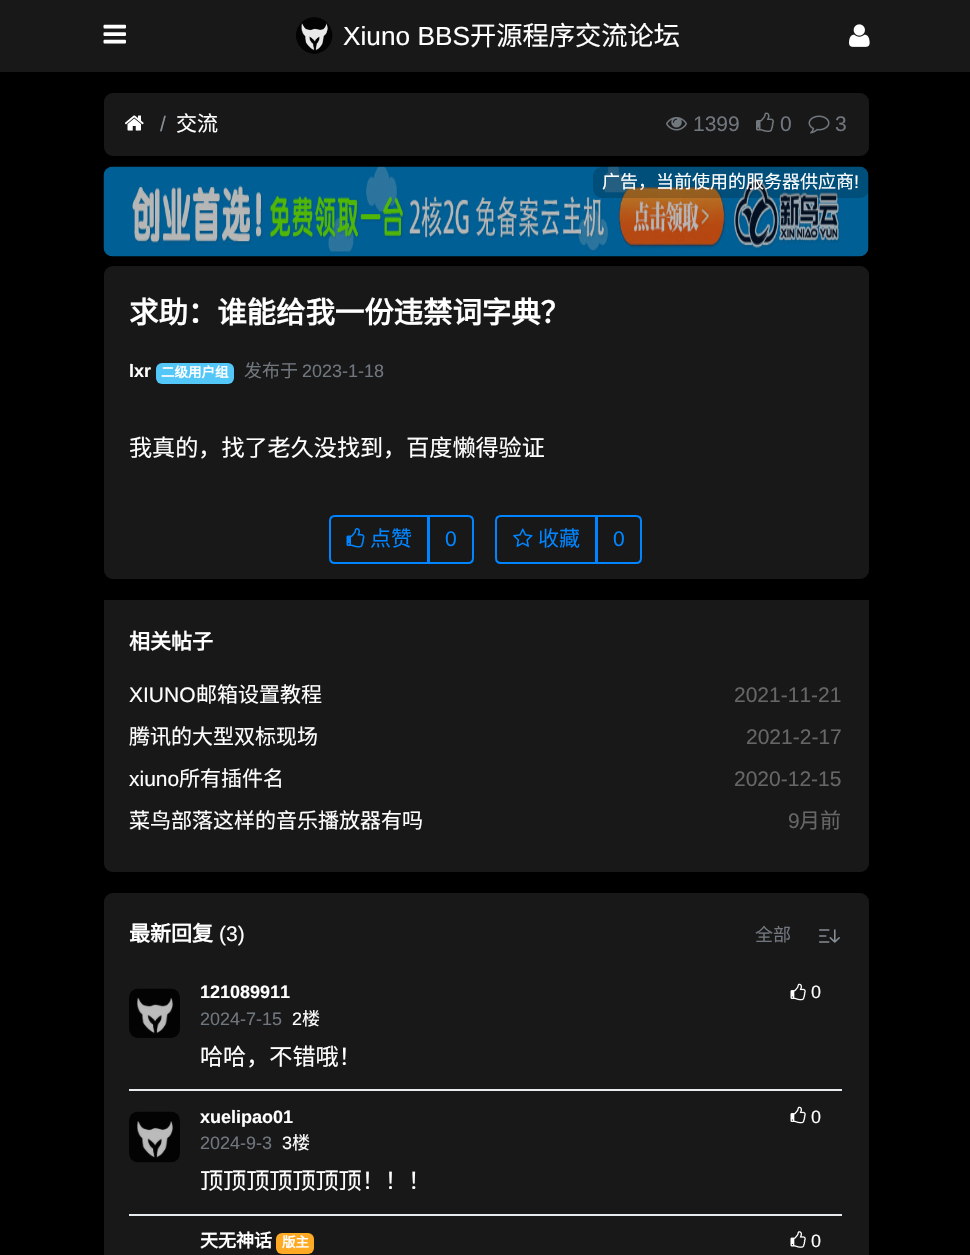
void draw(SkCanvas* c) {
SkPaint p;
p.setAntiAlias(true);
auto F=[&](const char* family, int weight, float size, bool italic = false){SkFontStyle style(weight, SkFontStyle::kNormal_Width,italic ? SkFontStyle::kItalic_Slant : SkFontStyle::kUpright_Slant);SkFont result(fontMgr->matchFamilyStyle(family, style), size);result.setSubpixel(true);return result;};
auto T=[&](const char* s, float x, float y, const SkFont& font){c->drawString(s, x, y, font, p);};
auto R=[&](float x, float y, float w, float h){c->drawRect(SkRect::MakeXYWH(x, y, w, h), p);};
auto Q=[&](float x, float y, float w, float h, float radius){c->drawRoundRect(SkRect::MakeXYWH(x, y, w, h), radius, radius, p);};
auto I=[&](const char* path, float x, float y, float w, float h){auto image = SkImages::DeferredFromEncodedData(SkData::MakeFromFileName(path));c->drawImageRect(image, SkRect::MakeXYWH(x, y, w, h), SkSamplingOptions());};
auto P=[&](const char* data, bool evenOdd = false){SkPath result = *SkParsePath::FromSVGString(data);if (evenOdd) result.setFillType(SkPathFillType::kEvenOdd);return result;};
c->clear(0xff000000);
p.setColor(0xff181818);
R(0,0,970,72);
I("1.png",103,24,23,20);
I("2.png",296,17,37,37);
auto f1 = F("Liberation Sans",400,26.25);
p.setColor(0xffffffff);
T("Xiuno BBS",343,45,f1);
auto f2 = F("Noto Sans CJK SC",400,26.25);
T("开源程序交流论坛",470,45,f2);
I("3.png",849,24,21,23);
p.setColor(0xff181818);
Q(104,93,765,63,9);
I("4.png",125,115,19,16);
auto f3 = F("Liberation Sans",400,21);
p.setColor(0xff868e96);
T("/",160,131,f3);
auto f4 = F("Noto Sans CJK SC",400,21);
p.setColor(0xffffffff);
T("交流",176,131,f4);
I("5.png",666,117,21,14);
p.setColor(0xff70767d);
T("1399",693,131,f3);
I("6.png",756,112,18,20);
T("0",780,131,f3);
I("7.png",808,115,22,19);
T("3",835,131,f3);
I("8.png",103,166,766,91);
p.setColor(0x2e000000);
Q(593,167,276,31,9);
auto f5 = F("Noto Sans CJK SC",400,18);
p.setColor(0xffffffff);
T("广告，当前使用的服务器供应商",602,188,f5);
auto f6 = F("Liberation Sans",400,18);
T("!",854,188,f6);
p.setColor(0xff181818);
Q(104,266,765,313,9);
auto f7 = F("Noto Sans CJK SC",700,29.4);
p.setColor(0xffffffff);
T("求助：谁能给我一份违禁词字典？",129,323,f7);
auto f8 = F("Liberation Sans",700,18);
T("lxr",129,377,f8);
p.setColor(0xff52c7f8);
Q(156,363,78,21,6);
auto f9 = F("Noto Sans CJK SC",700,13.5);
p.setColor(0xffffffff);
T("二级用户组",161,377,f9);
p.setColor(0xff70767d);
T("发布于",244,377,f5);
T("2023-1-18",302,377,f6);
auto f10 = F("Noto Sans CJK SC",400,23.1);
p.setColor(0xffffffff);
T("我真的，找了老久没找到，百度懒得验证",129,456,f10);
p.setStroke(true);
p.setStrokeWidth(2);
p.setColor(0xff0084ff);
c->drawPath(P("M335 516h93v47h-93c-3 0-5-2-5-5v-37c0-3 2-5 5-5z"),p);
I("9.png",346,528,19,20);
p.setStroke(false);
T("点赞",370,546,f4);
p.setStroke(true);
c->drawPath(P("M429 516h39c3 0 5 2 5 5v37c0 3-2 5-5 5h-39z"),p);
p.setStroke(false);
T("0",445,546,f3);
p.setStroke(true);
c->drawPath(P("M501 516h95v47h-95c-3 0-5-2-5-5v-37c0-3 2-5 5-5z"),p);
I("10.png",513,528,20,19);
p.setStroke(false);
T("收藏",538,546,f4);
p.setStroke(true);
c->drawPath(P("M597 516h39c3 0 5 2 5 5v37c0 3-2 5-5 5h-39z"),p);
p.setStroke(false);
T("0",613,546,f3);
p.setColor(0xff181818);
c->drawPath(P("M104 600h765v263c0 5-4 9-9 9h-747c-5 0-9-4-9-9z"),p);
auto f11 = F("Noto Sans CJK SC",700,21);
p.setColor(0xffffffff);
T("相关帖子",129,649,f11);
T("XIUNO",129,702,f3);
T("邮箱设置教程",196,702,f4);
p.setColor(0xff666666);
T("2021-11-21",734,702,f3);
p.setColor(0xffffffff);
T("腾讯的大型双标现场",129,744,f4);
p.setColor(0xff666666);
T("2021-2-17",746,744,f3);
p.setColor(0xffffffff);
T("xiuno",129,786,f3);
T("所有插件名",179,786,f4);
p.setColor(0xff666666);
T("2020-12-15",734,786,f3);
p.setColor(0xffffffff);
T("菜鸟部落这样的音乐播放器有吗",129,828,f4);
p.setColor(0xff666666);
T("9",788,828,f3);
T("月前",799,828,f4);
p.setColor(0xff181818);
Q(104,893,765,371,9);
p.setColor(0xffffffff);
T("最新回复",129,941,f11);
T("(3)",219,941,f3);
p.setColor(0xff70767d);
T("全部",755,941,f5);
I("11.png",819,929,21,14);
p.setColor(0xffe9ecef);
R(129,1089,713,2);
I("12.png",129,988,51,50);
p.setColor(0xffffffff);
T("121089911",200,998,f8);
p.setColor(0xff70767d);
T("2024-7-15",200,1025,f6);
p.setColor(0xffffffff);
T("2",292,1025,f6);
T("楼",302,1025,f5);
I("13.png",790,983,16,18);
T("0",811,998,f6);
T("哈哈，不错哦！",200,1065,f10);
p.setColor(0xffe9ecef);
R(129,1214,713,2);
I("14.png",129,1111,51,52);
p.setColor(0xffffffff);
T("xuelipao01",200,1123,f8);
p.setColor(0xff70767d);
T("2024-9-3",200,1149,f6);
p.setColor(0xffffffff);
T("3",282,1149,f6);
T("楼",292,1149,f5);
I("13.png",790,1106,16,18);
T("0",811,1123,f6);
T("顶顶顶顶顶顶顶！！！",200,1189,f10);
auto f12 = F("Noto Sans CJK SC",700,18);
T("天无神话",200,1247,f12);
p.setColor(0xffffaa25);
Q(276,1233,38,21,6);
p.setColor(0xffffffff);
T("版主",282,1247,f9);
I("15.png",790,1231,16,17);
T("0",811,1247,f6);
}
